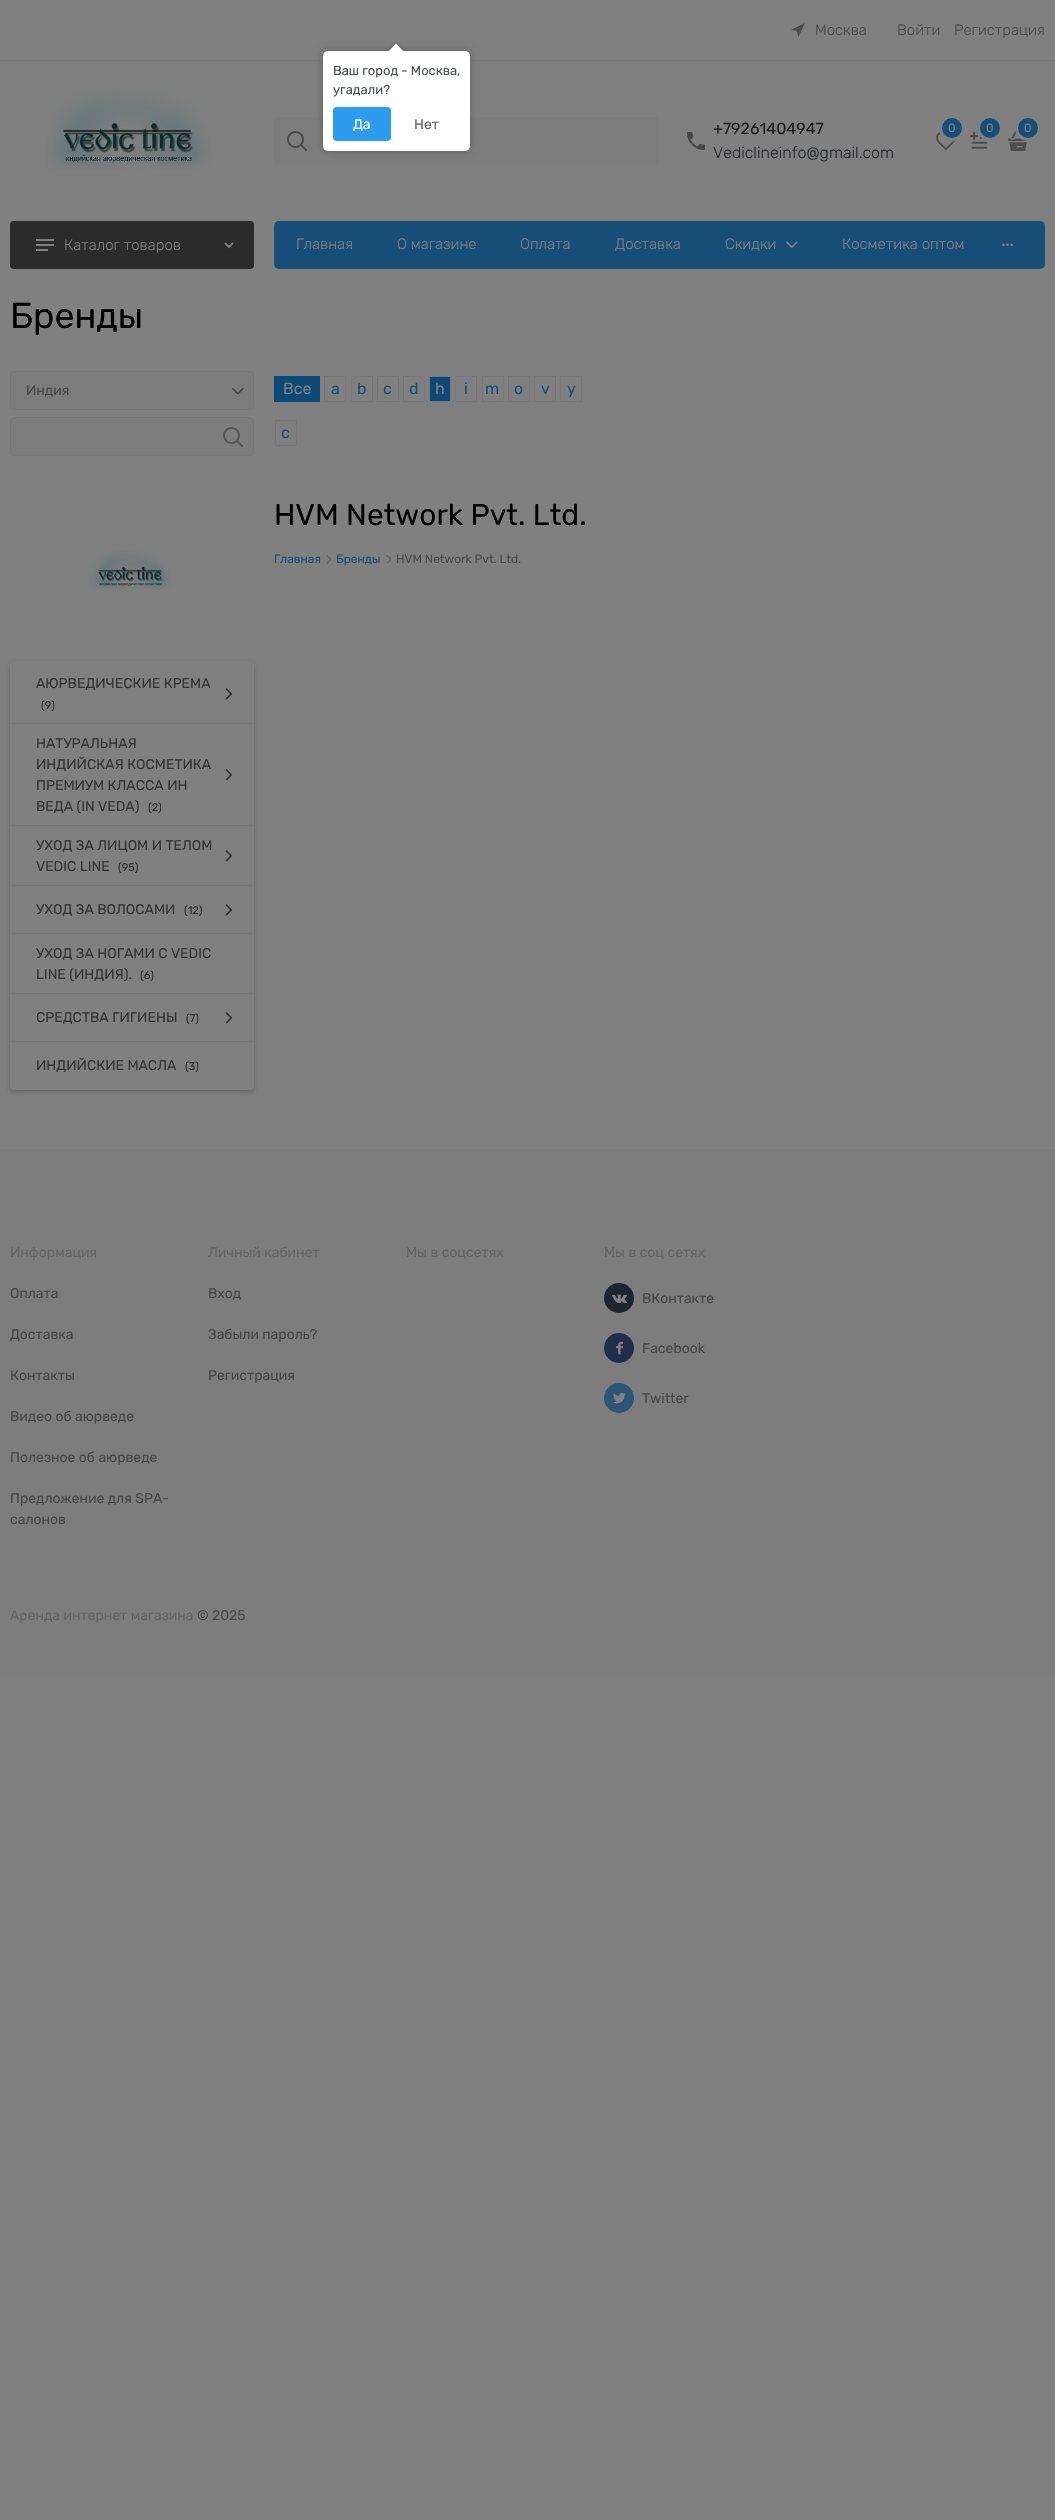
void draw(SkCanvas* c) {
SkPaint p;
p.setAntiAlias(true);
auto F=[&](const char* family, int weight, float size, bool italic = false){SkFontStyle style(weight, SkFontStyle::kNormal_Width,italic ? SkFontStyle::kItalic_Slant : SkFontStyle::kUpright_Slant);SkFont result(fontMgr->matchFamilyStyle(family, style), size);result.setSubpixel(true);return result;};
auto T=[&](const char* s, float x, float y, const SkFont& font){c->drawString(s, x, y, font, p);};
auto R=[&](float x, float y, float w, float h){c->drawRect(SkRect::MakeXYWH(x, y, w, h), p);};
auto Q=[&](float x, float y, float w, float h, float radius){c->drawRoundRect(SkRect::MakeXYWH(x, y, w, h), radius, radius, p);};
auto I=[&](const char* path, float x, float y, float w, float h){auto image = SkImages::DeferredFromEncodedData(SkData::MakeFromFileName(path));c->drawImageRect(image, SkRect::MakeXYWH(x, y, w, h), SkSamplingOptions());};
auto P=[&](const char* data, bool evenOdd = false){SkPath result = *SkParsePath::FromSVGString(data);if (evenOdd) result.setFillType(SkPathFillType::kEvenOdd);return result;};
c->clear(0xff808080);
p.setColor(0xff78787a);
R(0,60,1055,1);
I("1.png",791,23,14,14);
auto f1 = F("Rubik",300,15);
p.setColor(0xff4b4a4a);
T("Москва",815,35,f1);
T("Войти",897,35,f1);
T("Регистрация",954,35,f1);
I("2.png",46,88,166,83);
p.setColor(0xff7d7d7d);
Q(274,117,385,47,4);
I("3.png",287,131,20,20);
I("4.png",687,132,18,18);
auto f2 = F("Rubik",400,16);
p.setColor(0xff1a1a1a);
T("+79261404947",713,134,f2);
auto f3 = F("Rubik",300,16);
p.setColor(0xff26282c);
T("Vediclineinfo@gmail.com",713,158,f3);
I("5.png",936,132,20,18);
p.setColor(0xff174e77);
c->drawCircle(952,128,11.5,p);
p.setStroke(true);
p.setStrokeWidth(3);
p.setColor(0xff808080);
c->drawCircle(952,128,11.5,p);
auto f4 = F("Rubik",400,12);
p.setStroke(false);
T("0",948,132,f4);
I("6.png",970,131,17,18);
p.setColor(0xff174e77);
c->drawCircle(990,128,11.5,p);
p.setStroke(true);
p.setColor(0xff808080);
c->drawCircle(990,128,11.5,p);
p.setStroke(false);
T("0",986,132,f4);
I("7.png",1008,131,20,20);
p.setColor(0xff174e77);
c->drawCircle(1028,128,11.5,p);
p.setStroke(true);
p.setColor(0xff808080);
c->drawCircle(1028,128,11.5,p);
p.setStroke(false);
T("0",1024,132,f4);
p.setColor(0xff2a2b2a);
Q(10,221,244,48,4);
I("8.png",36,239,18,12);
p.setColor(0xff808080);
T("Каталог товаров",64,250,f1);
I("9.png",224,242,10,7);
p.setColor(0xff174e77);
Q(274,221,771,48,5);
p.setColor(0xff808080);
T("Главная",296,249,f1);
T("О магазине",397,249,f1);
T("Оплата",520,249,f1);
T("Доставка",615,249,f1);
T("Скидки",725,249,f1);
I("10.png",786,241,12,7);
T("Косметика оптом",842,249,f1);
I("11.png",1002,243,11,4);
auto f5 = F("Rubik",400,36);
p.setColor(0xff000000);
T("Бренды",10,328,f5);
p.setColor(0xff7d7d7d);
c->drawRoundRect(SkRect::MakeXYWH(10.5,371.5,243,38),3.5,3.5,p);
p.setStroke(true);
p.setStrokeWidth(1);
p.setColor(0xff78787a);
c->drawRoundRect(SkRect::MakeXYWH(10.5,371.5,243,38),3.5,3.5,p);
auto f6 = F("Rubik",400,14);
p.setStroke(false);
p.setColor(0xff454548);
T("Индия",26,395,f6);
I("12.png",232,387,12,7);
p.setColor(0xff7d7d7d);
c->drawRoundRect(SkRect::MakeXYWH(10.5,417.5,243,38),3.5,3.5,p);
p.setStroke(true);
p.setColor(0xff78787a);
c->drawRoundRect(SkRect::MakeXYWH(10.5,417.5,243,38),3.5,3.5,p);
I("13.png",223,427,20,20);
p.setStroke(false);
p.setColor(0xff0b4976);
R(274,376,46,26);
p.setColor(0xff808080);
T("Все",283,394,f2);
p.setStroke(true);
p.setColor(0xff78787a);
c->drawRect(SkRect::MakeXYWH(324.5,376.5,21,25),p);
p.setStroke(false);
p.setColor(0xff174e77);
T("a",331,394,f2);
p.setStroke(true);
p.setColor(0xff78787a);
c->drawRect(SkRect::MakeXYWH(351.5,376.5,21,25),p);
p.setStroke(false);
p.setColor(0xff174e77);
T("b",357,394,f2);
p.setStroke(true);
p.setColor(0xff78787a);
c->drawRect(SkRect::MakeXYWH(377.5,376.5,21,25),p);
p.setStroke(false);
p.setColor(0xff174e77);
T("c",383,394,f2);
p.setStroke(true);
p.setColor(0xff78787a);
c->drawRect(SkRect::MakeXYWH(403.5,376.5,21,25),p);
p.setStroke(false);
p.setColor(0xff174e77);
T("d",409,394,f2);
p.setColor(0xff0b4976);
c->drawRect(SkRect::MakeXYWH(429.5,376.5,21,25),p);
p.setStroke(true);
p.setColor(0xff78787a);
c->drawRect(SkRect::MakeXYWH(429.5,376.5,21,25),p);
p.setStroke(false);
p.setColor(0xff808080);
T("h",435,394,f2);
p.setStroke(true);
p.setColor(0xff78787a);
c->drawRect(SkRect::MakeXYWH(455.5,376.5,21,25),p);
p.setStroke(false);
p.setColor(0xff174e77);
T("i",464,394,f2);
p.setStroke(true);
p.setColor(0xff78787a);
c->drawRect(SkRect::MakeXYWH(482.5,376.5,21,25),p);
p.setStroke(false);
p.setColor(0xff174e77);
T("m",485,394,f2);
p.setStroke(true);
p.setColor(0xff78787a);
c->drawRect(SkRect::MakeXYWH(508.5,376.5,21,25),p);
p.setStroke(false);
p.setColor(0xff174e77);
T("o",514,394,f2);
p.setStroke(true);
p.setColor(0xff78787a);
c->drawRect(SkRect::MakeXYWH(534.5,376.5,21,25),p);
p.setStroke(false);
p.setColor(0xff174e77);
T("v",541,394,f2);
p.setStroke(true);
p.setColor(0xff78787a);
c->drawRect(SkRect::MakeXYWH(560.5,376.5,21,25),p);
p.setStroke(false);
p.setColor(0xff174e77);
T("y",567,394,f2);
p.setStroke(true);
p.setColor(0xff78787a);
c->drawRect(SkRect::MakeXYWH(275.5,420.5,21,25),p);
p.setStroke(false);
p.setColor(0xff174e77);
T("с",281,438,f2);
auto f7 = F("Rubik",400,30);
p.setColor(0xff000000);
T("HVM Network Pvt. Ltd.",274,525,f7);
p.setColor(0xff174e77);
T("Главная",274,563,f4);
I("14.png",326,555,5,9);
T("Бренды",336,563,f4);
I("15.png",386,555,5,9);
p.setColor(0xff4b4a4a);
T("HVM Network Pvt. Ltd.",396,563,f4);
I("16.png",89,550,82,40);
p.setColor(0x33000000);
p.setMaskFilter(SkMaskFilter::MakeBlur(kNormal_SkBlurStyle, 2));
c->drawRoundRect(SkRect::MakeXYWH(10,663,244,429),4,4,p);
p.setMaskFilter(nullptr);
p.setColor(0xff808080);
Q(10,661,244,429,4);
p.setColor(0xff78787a);
R(10,723,244,1);
p.setColor(0xff333333);
T("АЮРВЕДИЧЕСКИЕ КРЕМА",36,688,f6);
auto f8 = F("Rubik",400,11);
p.setColor(0xff26282c);
T("(9)",41,709,f8);
I("17.png",225,688,7,12);
p.setColor(0xff78787a);
R(10,825,244,1);
p.setColor(0xff333333);
T("НАТУРАЛЬНАЯ",36,748,f6);
T("ИНДИЙСКАЯ КОСМЕТИКА",36,769,f6);
T("ПРЕМИУМ КЛАССА ИН",36,790,f6);
T("ВЕДА (IN VEDA)",36,811,f6);
p.setColor(0xff26282c);
T("(2)",148,811,f8);
I("17.png",225,769,7,12);
p.setColor(0xff78787a);
R(10,885,244,1);
p.setColor(0xff333333);
T("УХОД ЗА ЛИЦОМ И ТЕЛОМ",36,850,f6);
T("VEDIC LINE",36,871,f6);
p.setColor(0xff26282c);
T("(95)",118,871,f8);
I("17.png",225,850,7,12);
p.setColor(0xff78787a);
R(10,933,244,1);
p.setColor(0xff333333);
T("УХОД ЗА ВОЛОСАМИ",36,914,f6);
p.setColor(0xff26282c);
T("(12)",184,914,f8);
I("17.png",225,904,7,12);
p.setColor(0xff78787a);
R(10,993,244,1);
p.setColor(0xff333333);
T("УХОД ЗА НОГАМИ С VEDIC",36,958,f6);
T("LINE (ИНДИЯ).",36,979,f6);
p.setColor(0xff26282c);
T("(6)",140,979,f8);
p.setColor(0xff78787a);
R(10,1041,244,1);
p.setColor(0xff333333);
T("СРЕДСТВА ГИГИЕНЫ",36,1022,f6);
p.setColor(0xff26282c);
T("(7)",186,1022,f8);
I("17.png",225,1012,7,12);
p.setColor(0xff333333);
T("ИНДИЙСКИЕ МАСЛА",36,1070,f6);
p.setColor(0xff26282c);
T("(3)",185,1070,f8);
p.setColor(0xff7d7d7d);
R(0,1149,1055,527);
p.setColor(0xff646466);
T("Информация",10,1257,f6);
p.setColor(0xff454548);
T("Оплата",10,1298,f6);
T("Доставка",10,1339,f6);
T("Контакты",10,1380,f6);
T("Видео об аюрведе",10,1421,f6);
T("Полезное об аюрведе",10,1462,f6);
T("Предложение для SPA-",10,1503,f6);
T("салонов",10,1524,f6);
p.setColor(0xff646466);
T("Личный кабинет",208,1257,f6);
p.setColor(0xff454548);
T("Вход",208,1298,f6);
T("Забыли пароль?",208,1339,f6);
T("Регистрация",208,1380,f6);
p.setColor(0xff646466);
T("Мы в соцсетях",406,1257,f6);
T("Мы в соц сетях",604,1257,f6);
p.setColor(0xff1e2530);
c->drawCircle(619,1298,15,p);
I("18.png",612,1294,15,10);
p.setColor(0xff454548);
T("ВКонтакте",642,1303,f6);
p.setColor(0xff202e4b);
c->drawCircle(619,1348,15,p);
I("19.png",616,1341,7,14);
p.setColor(0xff454548);
T("Facebook",642,1353,f6);
p.setColor(0xff2b5677);
c->drawCircle(619,1398,15,p);
I("20.png",613,1392,13,12);
p.setColor(0xff454548);
T("Twitter",642,1403,f6);
p.setColor(0xff646466);
T("Аренда интернет магазина",10,1620,f6);
p.setColor(0xff4b4a4a);
T("© 2025",197,1620,f6);
p.setColor(0x40000000);
p.setMaskFilter(SkMaskFilter::MakeBlur(kNormal_SkBlurStyle, 4.5));
c->drawRoundRect(SkRect::MakeXYWH(323,51,147,100),5,5,p);
p.setMaskFilter(nullptr);
p.setColor(0xffffffff);
Q(323,51,147,100,5);
c->save();
c->clipRect(SkRect::MakeXYWH(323,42,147,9));
p.setColor(0x40000000);
p.setMaskFilter(SkMaskFilter::MakeBlur(kNormal_SkBlurStyle, 4.5));
c->drawRect(SkRect::MakeXYWH(391,46,10,10),p);
p.setMaskFilter(nullptr);
c->restore();
c->save();
c->clipRect(SkRect::MakeXYWH(323,42,147,9));
p.setColor(0xffffffff);
c->drawPath(P("M396 43.5l7 7.5l-7 7l-7-7z"),p);
c->restore();
auto f9 = F("Rubik",400,13);
p.setColor(0xff4b4f58);
T("Ваш город - Москва,",333,75,f9);
T("угадали?",333,94,f9);
p.setColor(0xff2d9cee);
Q(333,107,58,34,4);
p.setColor(0xffffffff);
T("Да",353,129,f6);
p.setColor(0xff646466);
T("Нет",414,129,f6);
}
